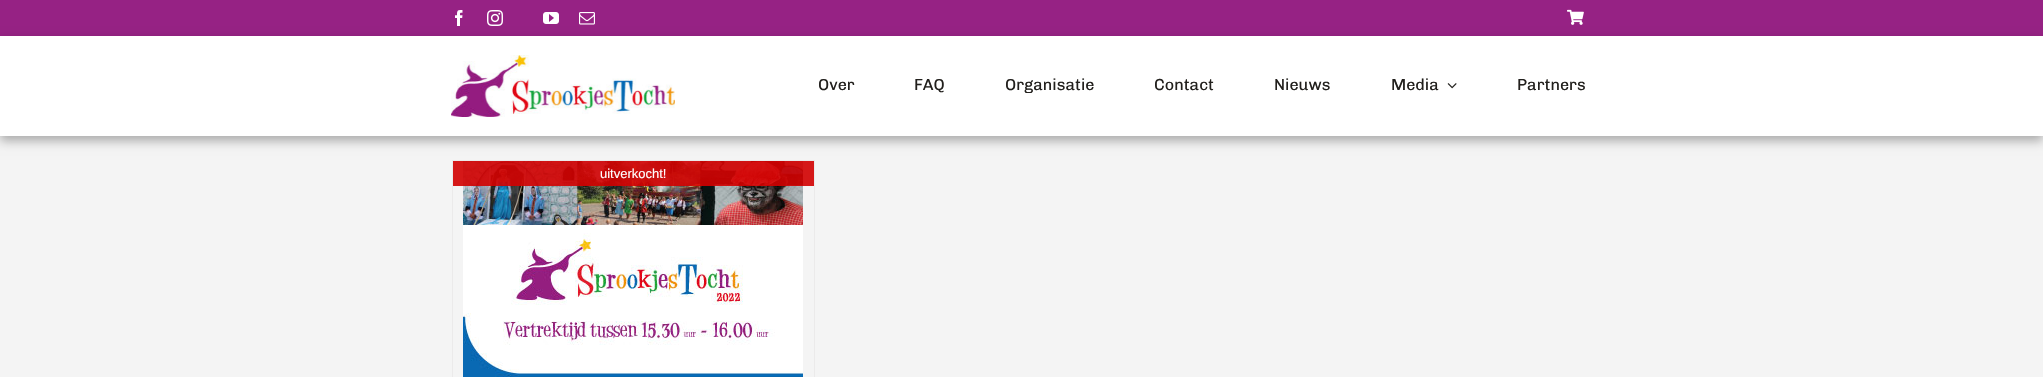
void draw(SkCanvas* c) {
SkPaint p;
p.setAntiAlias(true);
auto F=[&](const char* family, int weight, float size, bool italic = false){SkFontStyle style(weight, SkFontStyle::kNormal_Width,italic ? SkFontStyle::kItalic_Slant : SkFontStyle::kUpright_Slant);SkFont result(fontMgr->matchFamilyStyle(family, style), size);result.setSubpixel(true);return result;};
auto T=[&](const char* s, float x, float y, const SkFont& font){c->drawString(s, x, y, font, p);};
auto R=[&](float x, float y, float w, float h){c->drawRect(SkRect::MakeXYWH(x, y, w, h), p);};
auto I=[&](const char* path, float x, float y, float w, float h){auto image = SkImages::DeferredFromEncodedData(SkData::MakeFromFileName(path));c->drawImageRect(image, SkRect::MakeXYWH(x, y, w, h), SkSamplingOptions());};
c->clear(0xfff4f4f4);
p.setColor(0xff962284);
R(0,0,2043,36);
I("1.png",455,10,8,16);
I("2.png",487,10,16,16);
I("3.png",543,12,16,12);
I("4.png",579,12,16,13);
I("5.png",1567,9,17,16);
p.setColor(0x4d000000);
p.setMaskFilter(SkMaskFilter::MakeBlur(kNormal_SkBlurStyle, 5));
c->drawRect(SkRect::MakeXYWH(0,41,2043,100),p);
p.setMaskFilter(nullptr);
p.setColor(0xffffffff);
R(0,36,2043,100);
I("6.png",451,55,224,62);
auto f1 = F("Chivo",500,16);
p.setColor(0xff22201d);
T("Over",818,90,f1);
T("FAQ",914,90,f1);
T("Organisatie",1005,90,f1);
T("Contact",1154,90,f1);
T("Nieuws",1274,90,f1);
T("Media",1391,90,f1);
I("7.png",1447,83,10,6);
T("Partners",1517,90,f1);
p.setColor(0xffebeaea);
R(452,160,363,1);
R(814,160,1,217);
R(452,160,1,217);
I("8.png",463,161,340,216);
p.setColor(0xe6d20000);
R(453,161,361,25);
auto f2 = F("Liberation Sans",400,13);
p.setColor(0xffffffff);
T("uitverkocht!",600,178,f2);
}
